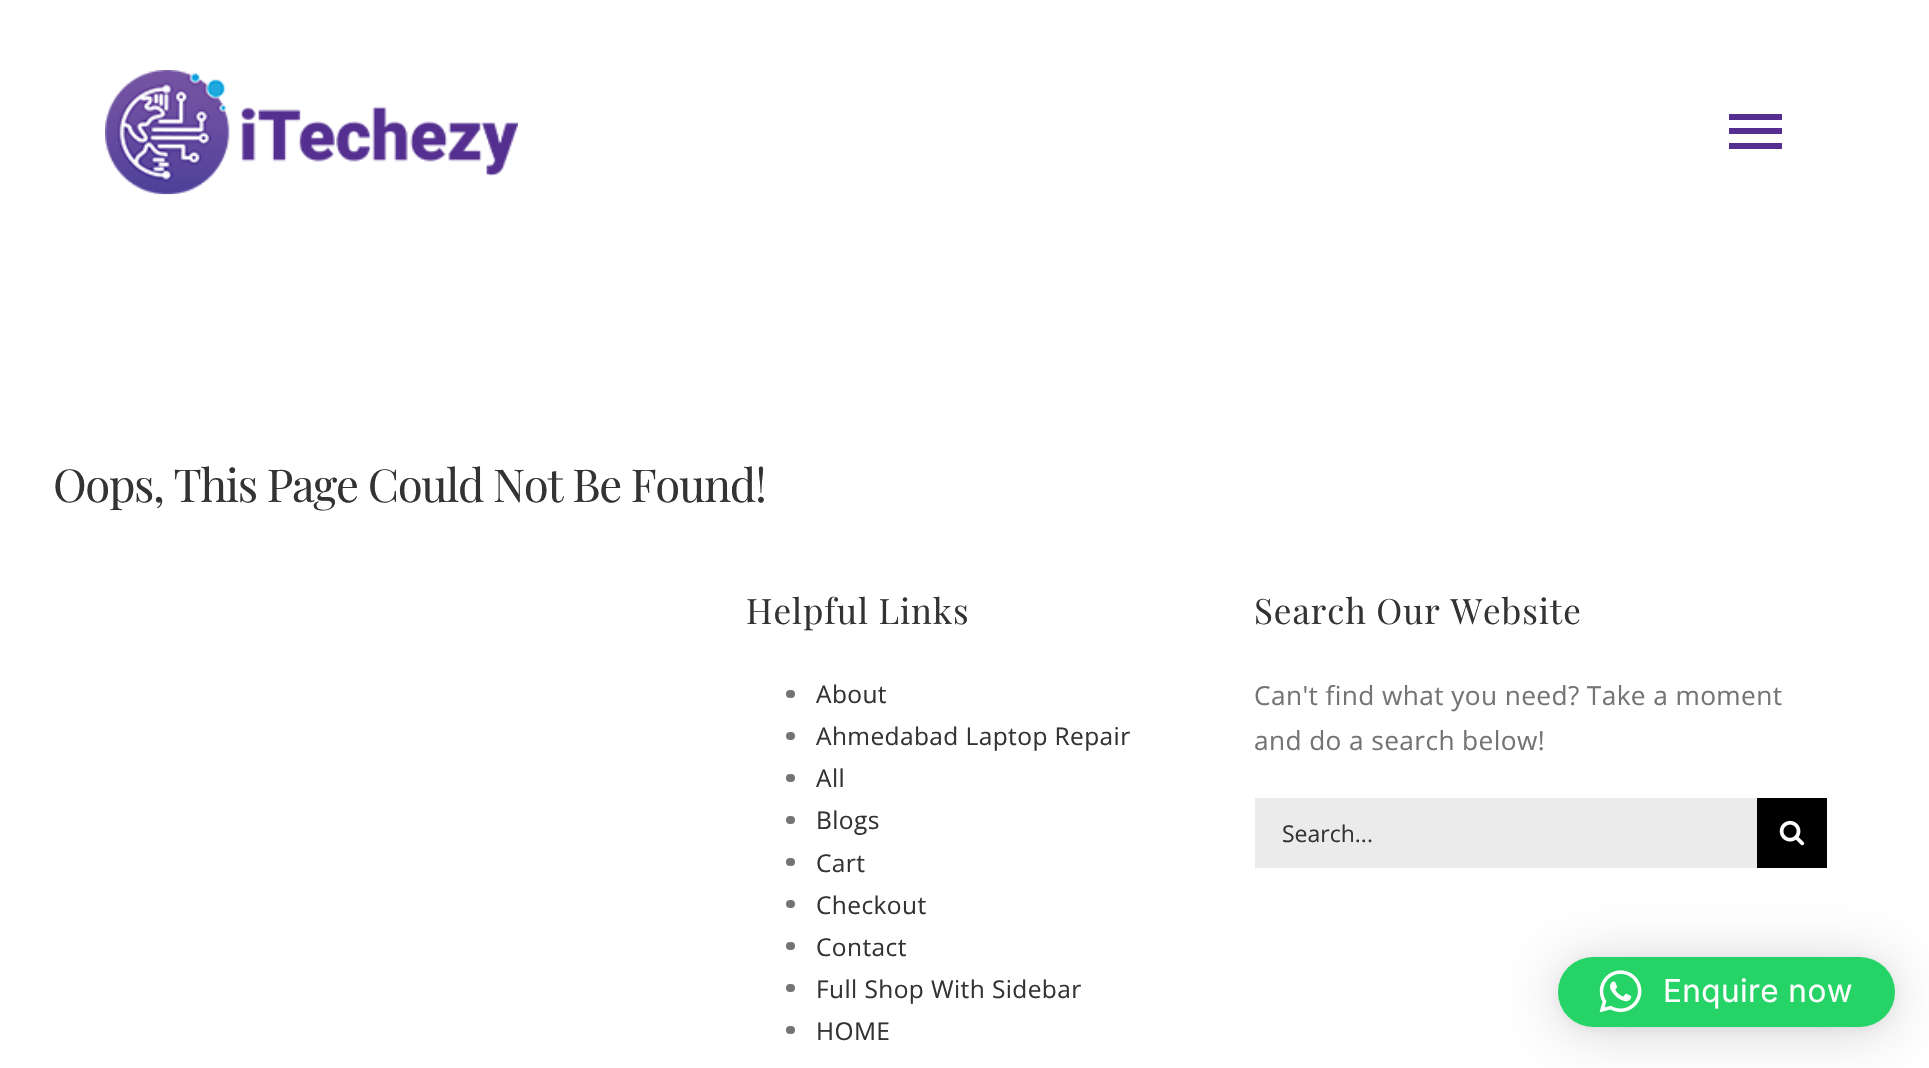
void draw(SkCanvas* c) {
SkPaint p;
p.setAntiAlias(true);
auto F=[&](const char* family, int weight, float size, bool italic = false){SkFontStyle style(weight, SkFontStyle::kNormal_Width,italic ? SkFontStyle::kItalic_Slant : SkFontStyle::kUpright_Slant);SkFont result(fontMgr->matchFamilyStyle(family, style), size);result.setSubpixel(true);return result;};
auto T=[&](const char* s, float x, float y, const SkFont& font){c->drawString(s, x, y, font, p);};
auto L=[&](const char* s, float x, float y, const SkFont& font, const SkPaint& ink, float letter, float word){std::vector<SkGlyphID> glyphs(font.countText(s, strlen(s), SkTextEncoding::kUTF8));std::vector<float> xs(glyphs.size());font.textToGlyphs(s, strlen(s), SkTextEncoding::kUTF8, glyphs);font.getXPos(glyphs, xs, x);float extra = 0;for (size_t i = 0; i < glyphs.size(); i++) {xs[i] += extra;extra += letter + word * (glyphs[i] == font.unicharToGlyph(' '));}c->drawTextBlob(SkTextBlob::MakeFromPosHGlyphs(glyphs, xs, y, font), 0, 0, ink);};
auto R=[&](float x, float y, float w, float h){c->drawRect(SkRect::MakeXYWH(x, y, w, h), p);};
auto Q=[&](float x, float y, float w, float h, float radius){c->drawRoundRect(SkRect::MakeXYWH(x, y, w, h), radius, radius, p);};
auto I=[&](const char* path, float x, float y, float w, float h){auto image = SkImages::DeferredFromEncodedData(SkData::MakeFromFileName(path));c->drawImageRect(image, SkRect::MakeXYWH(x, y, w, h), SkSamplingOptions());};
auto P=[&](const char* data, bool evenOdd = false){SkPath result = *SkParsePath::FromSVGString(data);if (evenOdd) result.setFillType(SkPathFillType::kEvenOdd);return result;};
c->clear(0xffffffff);
I("1.png",105,70,413,125);
p.setColor(0xff542f8f);
c->drawPath(P("M1729 114h53v6h-53zm0 20v-6h53v6zm0 15v-6h53v6z"),p);
auto f1 = F("Playfair Display",400,45.5);
p.setColor(0xff333333);
L("Oops, This Page Could Not Be Found!",53,502,f1,p,-1.35,0);
auto f2 = F("Playfair Display",400,35);
L("Helpful Links",746,624,f2,p,.9,0);
p.setColor(0xff747474);
Q(786,690,9,8,4);
auto f3 = F("Open Sans",400,24.5);
p.setColor(0xff333333);
L("About",816,703,f3,p,.4,0);
p.setColor(0xff747474);
Q(786,732,9,8,4);
p.setColor(0xff333333);
L("Ahmedabad Laptop Repair",816,745,f3,p,.4,0);
p.setColor(0xff747474);
Q(786,774,9,8,4);
p.setColor(0xff333333);
L("All",816,787,f3,p,.4,0);
p.setColor(0xff747474);
Q(786,816,9,8,4);
p.setColor(0xff333333);
L("Blogs",816,829,f3,p,.4,0);
p.setColor(0xff747474);
Q(786,858,9,8,4);
p.setColor(0xff333333);
L("Cart",816,872,f3,p,.4,0);
p.setColor(0xff747474);
Q(786,900,9,8,4);
p.setColor(0xff333333);
L("Checkout",816,914,f3,p,.4,0);
p.setColor(0xff747474);
Q(786,942,9,8,4);
p.setColor(0xff333333);
L("Contact",816,956,f3,p,.4,0);
p.setColor(0xff747474);
Q(786,984,9,8,4);
p.setColor(0xff333333);
L("Full Shop With Sidebar",816,998,f3,p,.4,0);
p.setColor(0xff747474);
Q(786,1026,9,8,4);
p.setColor(0xff333333);
L("HOME",816,1040,f3,p,.4,0);
L("Search Our Website",1254,624,f2,p,.9,0);
auto f4 = F("Open Sans",400,26.25);
p.setColor(0xff747474);
L("Can't find what you need? Take a moment",1254,705,f4,p,.4,0);
L("and do a search below!",1254,750,f4,p,.4,0);
p.setColor(0xffebebeb);
R(1255,798,502,70);
auto f5 = F("Open Sans",400,23);
p.setColor(0xff333333);
T("Search...",1282,842,f5);
p.setColor(0xff000000);
R(1757,798,70,70);
I("2.png",1779,820,26,26);
p.setColor(0x29000000);
p.setMaskFilter(SkMaskFilter::MakeBlur(kNormal_SkBlurStyle, 28));
c->drawRoundRect(SkRect::MakeXYWH(1558,961,337,70),35,35,p);
p.setMaskFilter(nullptr);
p.setColor(0x0f000000);
p.setMaskFilter(SkMaskFilter::MakeBlur(kNormal_SkBlurStyle, 5));
c->drawRoundRect(SkRect::MakeXYWH(1558,959,337,70),35,35,p);
p.setMaskFilter(nullptr);
p.setColor(0xff25d366);
Q(1558,957,337,70,35);
I("3.png",1599,970,43,43);
auto f6 = F("Inter",400,31.5);
p.setColor(0xffffffff);
L("Enquire now",1663,1002,f6,p,.4,0);
}
